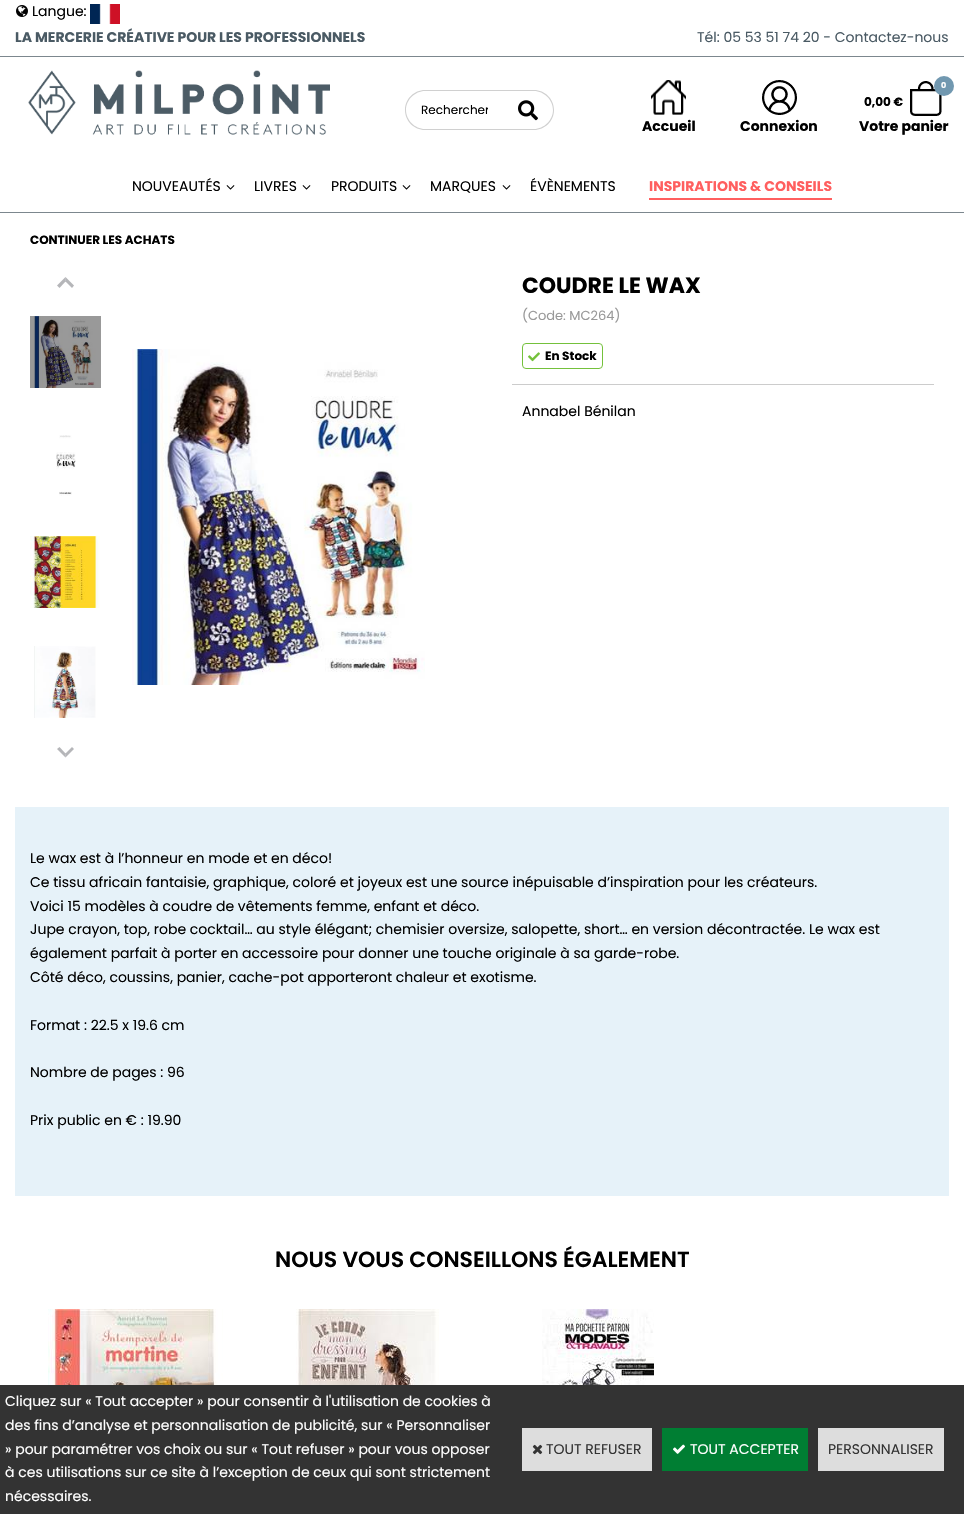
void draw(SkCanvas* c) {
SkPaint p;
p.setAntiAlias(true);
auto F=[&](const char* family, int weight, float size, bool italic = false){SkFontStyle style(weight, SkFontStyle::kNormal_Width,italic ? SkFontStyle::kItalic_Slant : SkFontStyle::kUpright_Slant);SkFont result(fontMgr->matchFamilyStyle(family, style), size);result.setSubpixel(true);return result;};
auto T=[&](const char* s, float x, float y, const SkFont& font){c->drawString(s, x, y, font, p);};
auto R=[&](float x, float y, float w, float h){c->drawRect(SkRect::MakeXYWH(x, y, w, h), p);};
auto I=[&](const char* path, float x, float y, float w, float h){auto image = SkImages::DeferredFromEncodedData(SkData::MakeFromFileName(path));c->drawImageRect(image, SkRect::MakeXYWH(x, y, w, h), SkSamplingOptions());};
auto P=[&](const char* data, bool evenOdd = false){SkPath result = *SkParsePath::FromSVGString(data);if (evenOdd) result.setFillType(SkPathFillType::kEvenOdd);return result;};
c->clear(0xffffffff);
I("1.png",16,5,12,12);
auto f1 = F("Poppins",400,14);
p.setColor(0xff000000);
T("Langue:",32,16,f1);
I("2.png",90,4,30,20);
p.setColor(0xff7c878e);
R(0,56,964,1);
auto f2 = F("Poppins",700,14);
p.setColor(0xff4a5a64);
T("LA MERCERIE CRÉATIVE POUR LES PROFESSIONNELS",15,42,f2);
T("Tél: 05 53 51 74 20 - Contactez-nous",697,42,f1);
I("3.png",28,70,302,65);
p.setColor(0xffd0d0d0);
c->drawPath(P("M425 90h78v40h-78c-11 0-20-9-20-20c0-11 9-20 20-20zm0 1h78v38h-78c-10 0-19-9-19-19c0-10 9-19 19-19z",true),p);
c->save();
c->clipRect(SkRect::MakeXYWH(421,90,67,40));
auto f3 = F("Poppins",400,12);
p.setColor(0xff000000);
T("Rechercher",421,114,f3);
c->restore();
p.setColor(0xffd0d0d0);
c->drawPath(P("M503 90h31c11 0 20 9 20 20c0 11-9 20-20 20h-31zm0 1h31c10 0 19 9 19 19c0 10-9 19-19 19h-31z",true),p);
I("4.png",518,100,20,21);
I("5.png",651,80,35,35);
p.setColor(0xff000000);
T("Accueil",642,131,f2);
I("6.png",762,80,35,35);
T("Connexion",740,131,f2);
I("7.png",910,81,32,35);
p.setColor(0xff7198b0);
c->drawCircle(944,86,10,p);
auto f4 = F("Poppins",700,8);
p.setColor(0xffffffff);
T("0",941,88,f4);
auto f5 = F("Poppins",700,12);
p.setColor(0xff000000);
T("0,00 €",864,106,f5);
T("Votre panier",859,131,f2);
p.setColor(0xff7c878e);
R(0,212,964,1);
p.setColor(0xff000000);
T("NOUVEAUTÉS",132,191,f1);
I("8.png",226,185,9,5);
T("LIVRES",254,191,f1);
I("8.png",302,185,9,5);
T("PRODUITS",331,191,f1);
I("8.png",402,185,9,5);
T("MARQUES",430,191,f1);
I("8.png",502,185,9,5);
T("ÉVÈNEMENTS",530,191,f1);
p.setColor(0xffff5f5f);
T("INSPIRATIONS & CONSEILS",649,191,f2);
R(649,198,183,2);
p.setColor(0xff000000);
T("CONTINUER LES ACHATS",30,244,f5);
p.setColor(0xffb5b6b9);
c->drawPath(P("M65.5 277l8.5 8.5l-2 2.5l-6.5-6.5z"),p);
p.setColor(0x9983858b);
c->drawPath(P("M57 285.5l8.5-8.5v4.5l-6 6.5z"),p);
I("9.png",30,316,71,72);
I("10.png",56,435,20,61);
I("11.png",30,536,70,72);
I("12.png",34,646,62,72);
p.setColor(0xffb5b6b9);
c->drawPath(P("M65.5 757.5l-8.5-8.5l2.5-2l6 6.5z"),p);
p.setColor(0x9983858b);
c->drawPath(P("M74 749l-8.5 8.5v-4l6.5-6.5z"),p);
I("13.png",132,349,293,336);
auto f6 = F("Poppins",700,22);
p.setColor(0xff000000);
T("COUDRE LE WAX",522,293,f6);
auto f7 = F("Poppins",400,13);
p.setColor(0xff999999);
T("(Code: MC264)",522,320,f7);
p.setColor(0xffcccccc);
R(512,384,422,1);
p.setStroke(true);
p.setStrokeWidth(1);
p.setColor(0xff74c13b);
c->drawRoundRect(SkRect::MakeXYWH(522.5,343.5,80,25),3.5,3.5,p);
I("14.png",528,352,12,10);
p.setStroke(false);
p.setColor(0xff000000);
T("En Stock",545,360,f5);
T("Annabel Bénilan",522,416,f1);
p.setColor(0xffe6f2f9);
R(15,807,934,389);
p.setColor(0xff000000);
T("Le wax est à l’honneur en mode et en déco!",30,863,f1);
T("Ce tissu africain fantaisie, graphique, coloré et joyeux est une source inépuisable d’inspiration pour les créateurs.",30,887,f1);
T("Voici 15 modèles à coudre de vêtements femme, enfant et déco.",30,911,f1);
T("Jupe crayon, top, robe cocktail… au style élégant; chemisier oversize, salopette, short… en version décontractée. Le wax est",30,934,f1);
T("également parfait à porter en accessoire pour donner une touche originale à sa garde-robe.",30,958,f1);
T("Côté déco, coussins, panier, cache-pot apporteront chaleur et exotisme.",30,982,f1);
T("Format : 22.5 x 19.6 cm",30,1030,f1);
T("Nombre de pages : 96",30,1077,f1);
T("Prix public en € : 19.90",30,1125,f1);
auto f8 = F("Poppins",600,22);
T("NOUS VOUS CONSEILLONS ÉGALEMENT",275,1267,f8);
I("15.png",48,1309,175,76);
I("16.png",296,1309,143,76);
I("17.png",542,1309,112,76);
p.setColor(0xff333333);
R(0,1385,964,129);
p.setColor(0xffffffff);
T("Cliquez sur « Tout accepter » pour consentir à l'utilisation de cookies à",5,1406,f1);
T("des fins d’analyse et personnalisation de publicité, sur « Personnaliser",5,1430,f1);
T("» pour paramétrer vos choix ou sur « Tout refuser » pour vous opposer",5,1454,f1);
T("à ces utilisations sur ce site à l’exception de ceux qui sont strictement",5,1477,f1);
T("nécessaires.",5,1501,f1);
p.setColor(0xffdddddd);
R(522,1428,130,43);
I("18.png",532,1444,11,11);
p.setColor(0xff333333);
T("TOUT REFUSER",546,1454,f1);
p.setColor(0xff007e33);
R(662,1428,146,43);
I("19.png",673,1444,12,10);
p.setColor(0xffffffff);
T("TOUT ACCEPTER",690,1454,f1);
p.setColor(0xffdddddd);
R(818,1428,126,43);
p.setColor(0xff333333);
T("PERSONNALISER",828,1454,f1);
}
